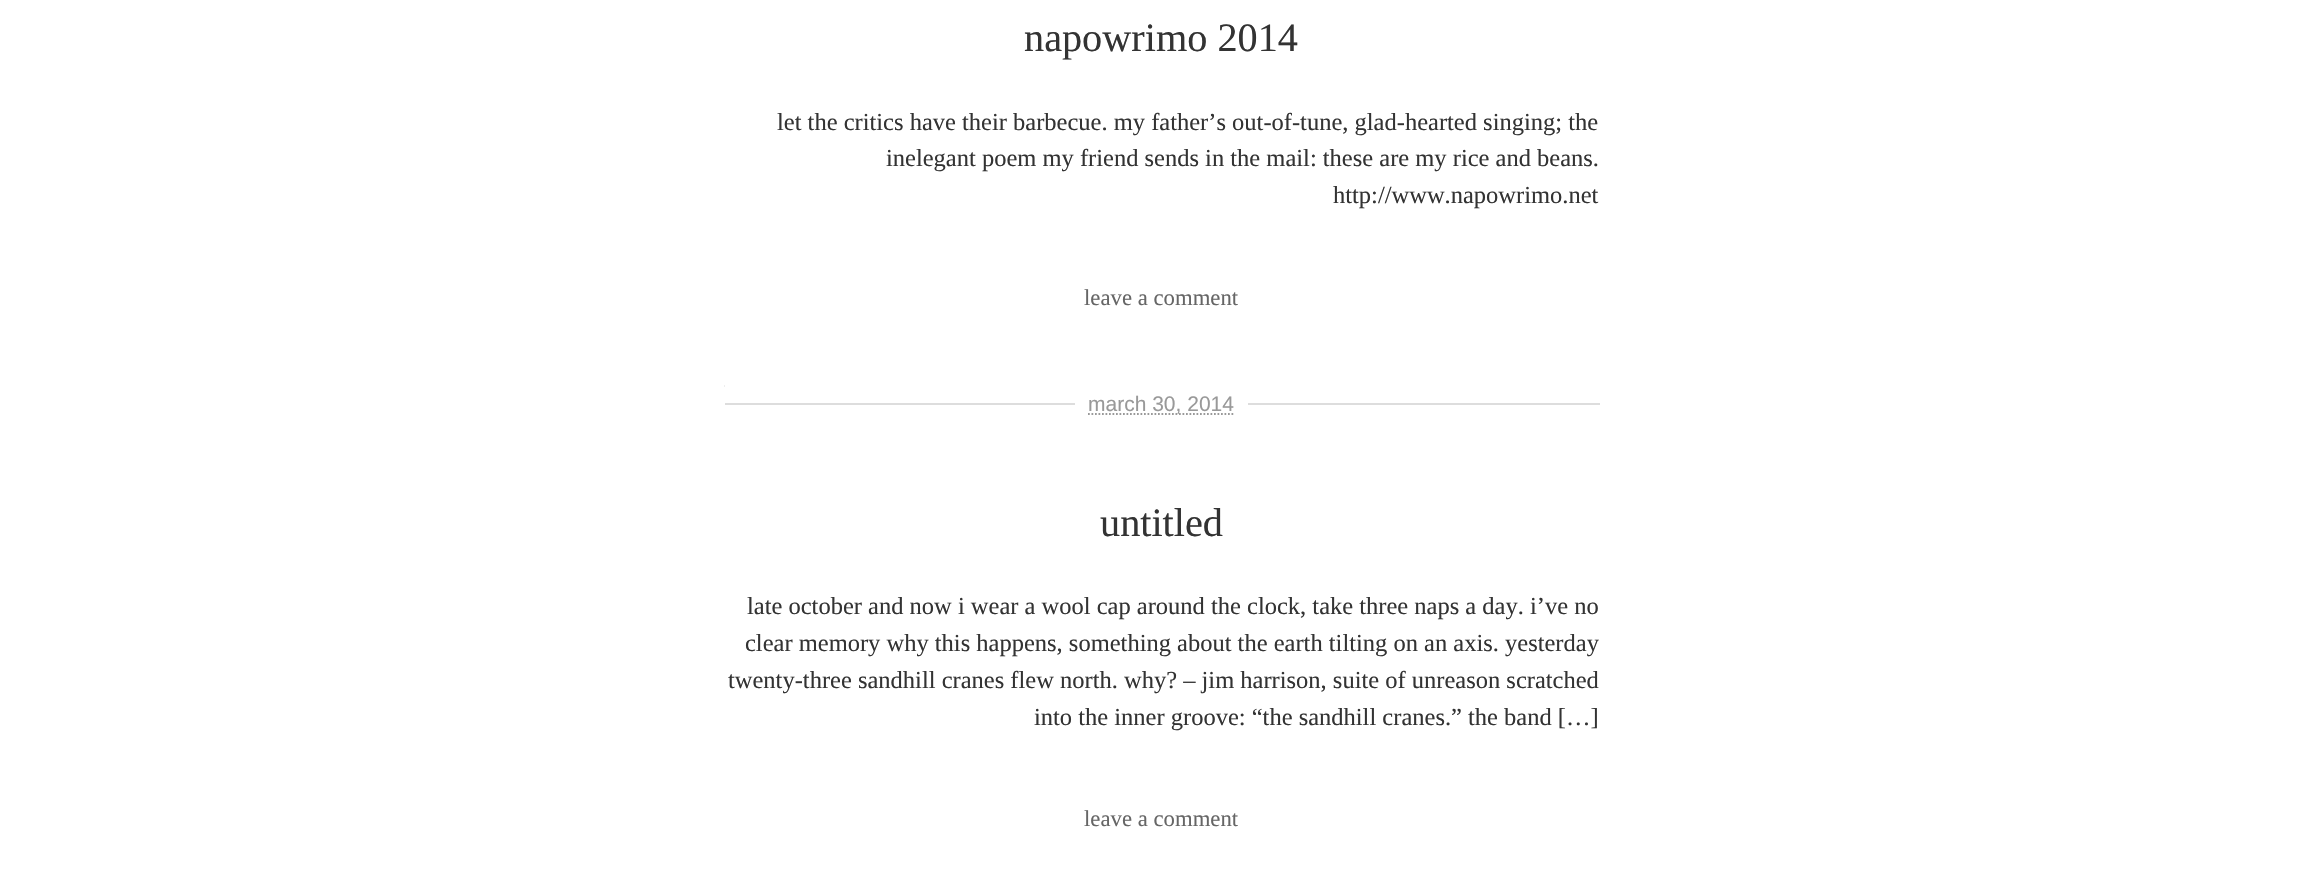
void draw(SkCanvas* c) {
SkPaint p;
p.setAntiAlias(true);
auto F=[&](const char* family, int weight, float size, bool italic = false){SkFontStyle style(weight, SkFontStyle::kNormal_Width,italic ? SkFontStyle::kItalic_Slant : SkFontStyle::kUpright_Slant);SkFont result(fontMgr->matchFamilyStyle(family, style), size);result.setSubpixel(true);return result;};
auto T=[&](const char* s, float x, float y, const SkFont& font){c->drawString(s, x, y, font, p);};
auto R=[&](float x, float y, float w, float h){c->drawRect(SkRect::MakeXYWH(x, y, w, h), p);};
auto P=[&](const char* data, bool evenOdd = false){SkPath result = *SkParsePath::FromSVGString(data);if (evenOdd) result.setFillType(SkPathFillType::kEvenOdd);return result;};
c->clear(0xffffffff);
p.setStroke(true);
p.setStrokeWidth(1.8);
p.setColor(0xffdddddd);
p.setPathEffect(SkDashPathEffect::Make({{1.75f,1.75f}}, 0));
c->drawPath(P("M724.5 386h875"),p);
p.setPathEffect(nullptr);
auto f1 = F("Liberation Serif",400,40.25);
p.setStroke(false);
p.setColor(0xff333333);
T("napowrimo 2014",1024,51,f1);
auto f2 = F("Liberation Serif",400,24.5);
T("let the critics have their barbecue. my father’s out-of-tune, glad-hearted singing; the",777,130,f2);
T("inelegant poem my friend sends in the mail: these are my rice and beans.",886,166,f2);
T("http://www.napowrimo.net",1333,203,f2);
auto f3 = F("Liberation Serif",400,22.75);
p.setColor(0xff666666);
T("leave a comment",1084,305,f3);
p.setColor(0xffffffff);
R(725,385,873,2);
p.setColor(0xffdddddd);
R(725,403,875,2);
p.setColor(0xffffffff);
R(1075,403,173,2);
p.setStroke(true);
p.setColor(0xff999999);
p.setPathEffect(SkDashPathEffect::Make({{1.75f,1.75f}}, 0));
c->drawPath(P("M1088 414h146"),p);
p.setPathEffect(nullptr);
auto f4 = F("Liberation Sans",400,21);
p.setStroke(false);
T("march 30, 2014",1088,411,f4);
p.setColor(0xff333333);
T("untitled",1100,536,f1);
T("late october and now i wear a wool cap around the clock, take three naps a day. i’ve no",747,614,f2);
T("clear memory why this happens, something about the earth tilting on an axis. yesterday",745,651,f2);
T("twenty-three sandhill cranes flew north. why? – jim harrison, suite of unreason scratched",728,688,f2);
T("into the inner groove: “the sandhill cranes.” the band […]",1034,725,f2);
p.setColor(0xff666666);
T("leave a comment",1084,826,f3);
}
